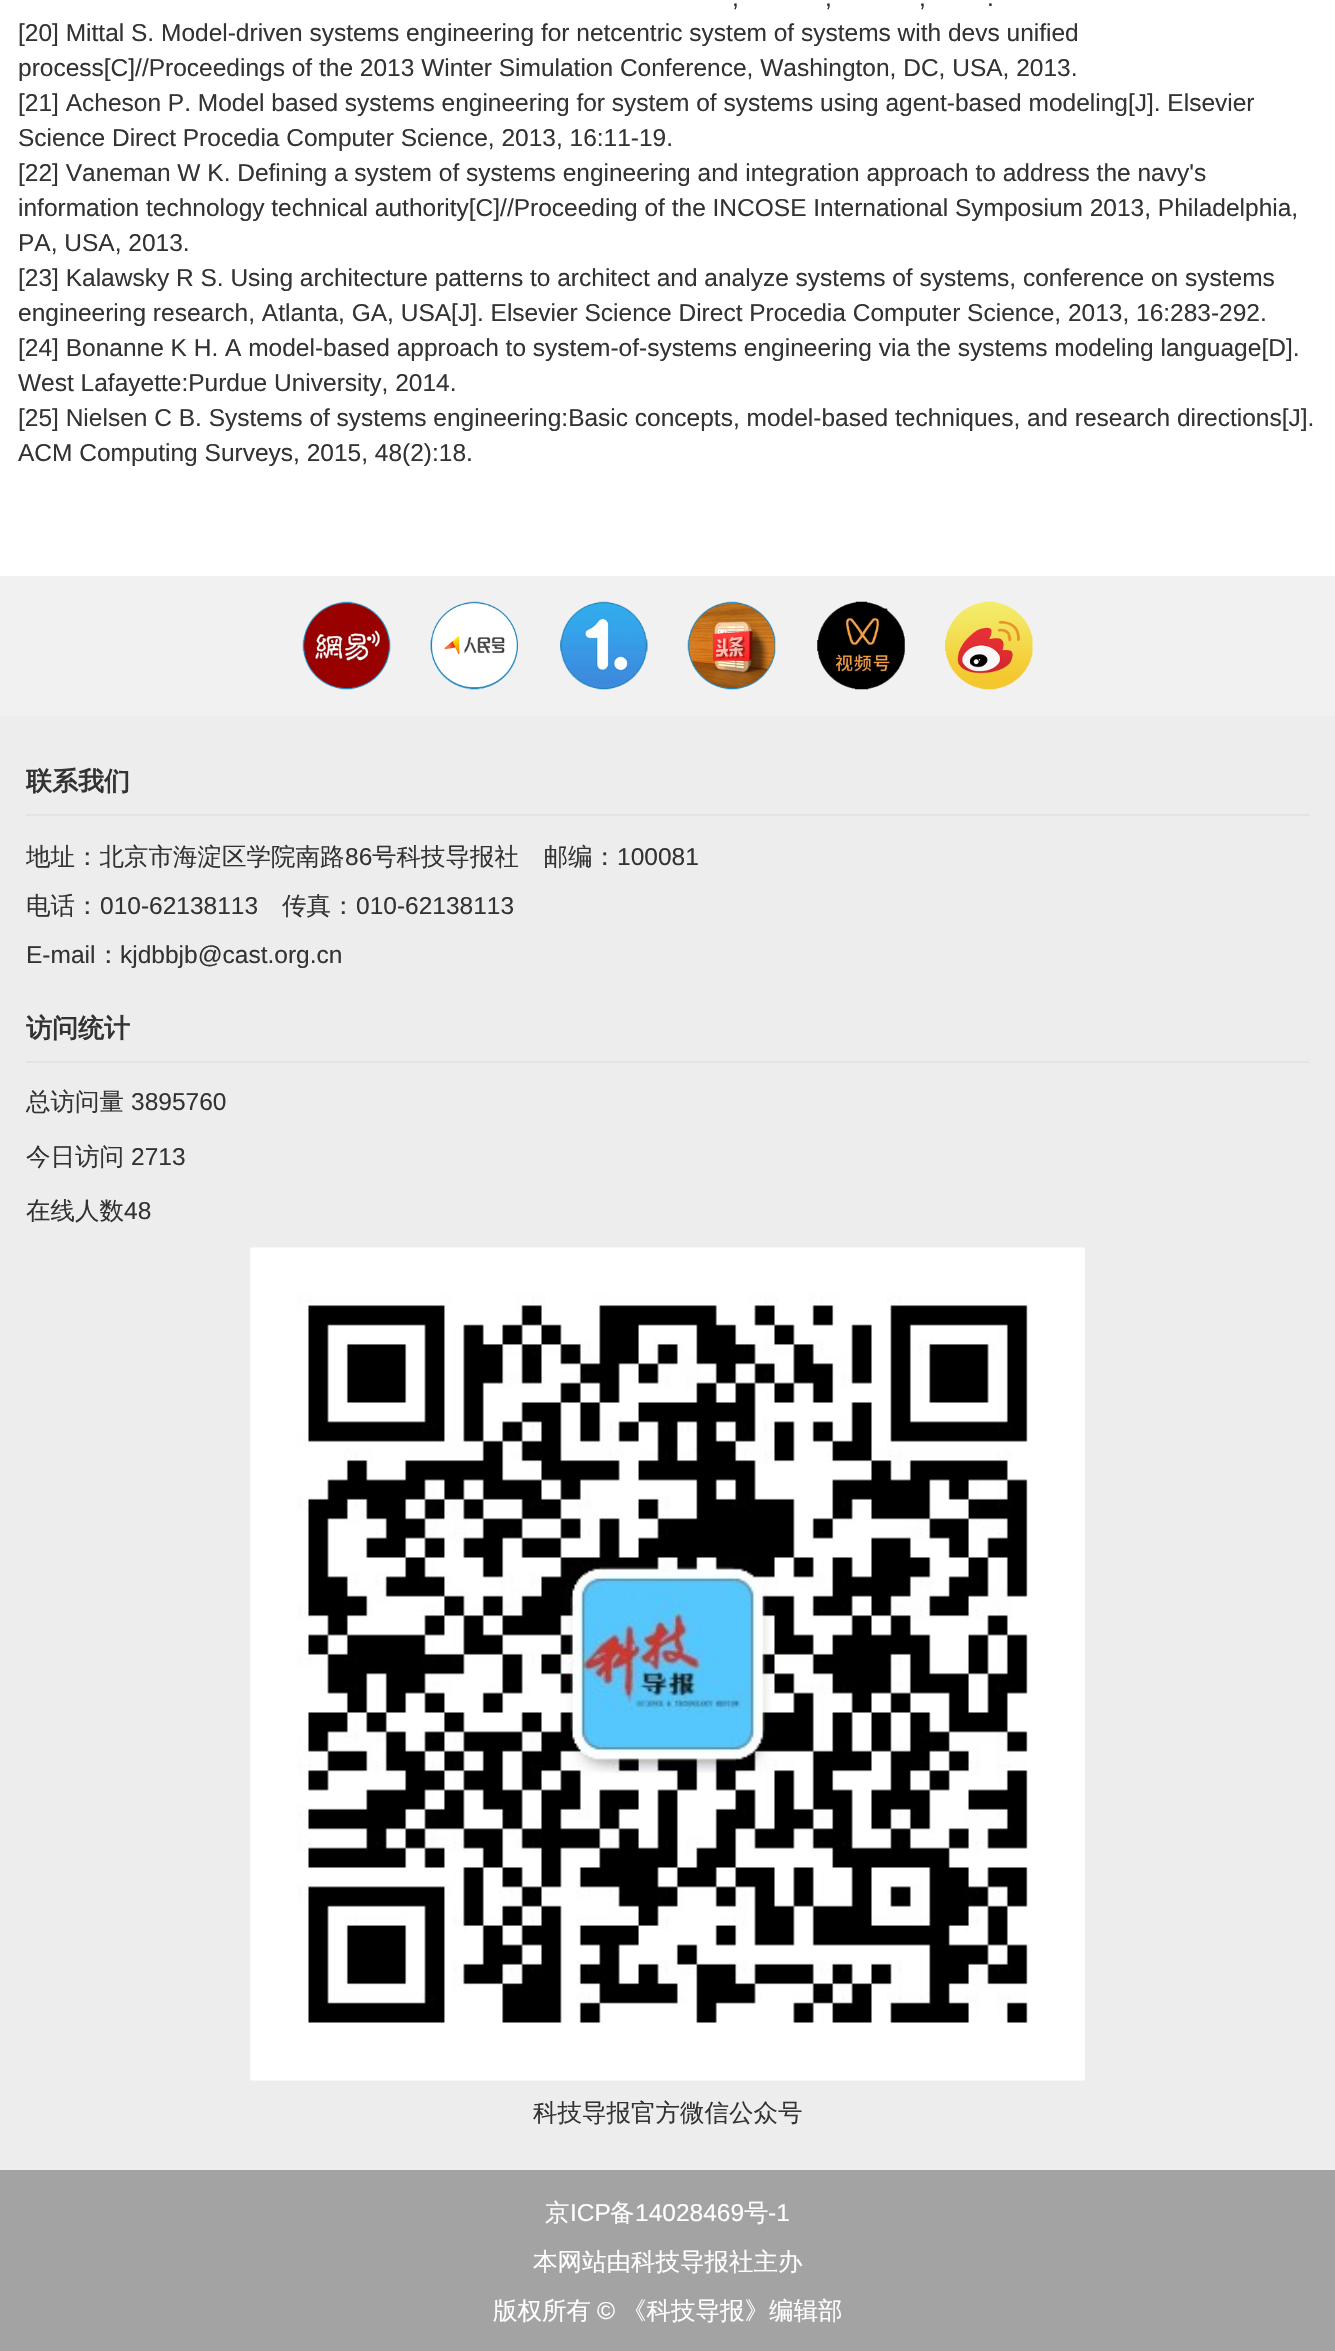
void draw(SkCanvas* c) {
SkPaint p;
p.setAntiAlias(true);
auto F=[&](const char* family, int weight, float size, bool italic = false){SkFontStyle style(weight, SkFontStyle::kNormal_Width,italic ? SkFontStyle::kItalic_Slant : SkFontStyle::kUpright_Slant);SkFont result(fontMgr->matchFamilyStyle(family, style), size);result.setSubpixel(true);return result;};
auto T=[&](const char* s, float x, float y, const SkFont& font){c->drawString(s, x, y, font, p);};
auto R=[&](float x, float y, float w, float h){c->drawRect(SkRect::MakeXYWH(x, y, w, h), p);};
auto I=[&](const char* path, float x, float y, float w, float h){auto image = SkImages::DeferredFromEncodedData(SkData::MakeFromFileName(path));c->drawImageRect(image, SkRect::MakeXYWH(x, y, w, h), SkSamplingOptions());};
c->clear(0xffffffff);
auto f1 = F("Liberation Sans",400,24.5);
p.setColor(0xff333333);
T(",",732,6,f1);
T(",",825,6,f1);
T(",",919,6,f1);
T(".",987,6,f1);
T("[20] Mittal S. Model-driven systems engineering for netcentric system of systems with devs unified",18,41,f1);
T("process[C]//Proceedings of the 2013 Winter Simulation Conference, Washington, DC, USA, 2013.",18,76,f1);
T("[21] Acheson P. Model based systems engineering for system of systems using agent-based modeling[J]. Elsevier",18,111,f1);
T("Science Direct Procedia Computer Science, 2013, 16:11-19.",18,146,f1);
T("[22] Vaneman W K. Defining a system of systems engineering and integration approach to address the navy's",18,181,f1);
T("information technology technical authority[C]//Proceeding of the INCOSE International Symposium 2013, Philadelphia,",18,216,f1);
T("PA, USA, 2013.",18,251,f1);
T("[23] Kalawsky R S. Using architecture patterns to architect and analyze systems of systems, conference on systems",18,286,f1);
T("engineering research, Atlanta, GA, USA[J]. Elsevier Science Direct Procedia Computer Science, 2013, 16:283-292.",18,321,f1);
T("[24] Bonanne K H. A model-based approach to system-of-systems engineering via the systems modeling language[D].",18,356,f1);
T("West Lafayette:Purdue University, 2014.",18,391,f1);
T("[25] Nielsen C B. Systems of systems engineering:Basic concepts, model-based techniques, and research directions[J].",18,426,f1);
T("ACM Computing Surveys, 2015, 48(2):18.",18,461,f1);
p.setColor(0xffededed);
R(0,716,1335,1454);
p.setColor(0xfff1f1f1);
R(0,576,1335,140);
I("1.png",302,601,89,89);
I("2.png",430,601,88,89);
I("3.png",560,601,88,89);
I("4.png",687,601,89,89);
I("5.png",817,601,88,89);
I("6.png",945,601,88,89);
p.setColor(0xffe3e3e3);
R(26,814,1283,2);
auto f2 = F("WenQuanYi Zen Hei",700,26);
p.setColor(0xff333333);
T("联系我们",26,790,f2);
auto f3 = F("WenQuanYi Zen Hei",500,24.5);
T("地址：北京市海淀区学院南路",26,865,f3);
T("86",345,865,f1);
T("号科技导报社　邮编：",372,865,f3);
T("100081",617,865,f1);
T("电话：",26,914,f3);
T("010-62138113",100,914,f1);
T("传真：",282,914,f3);
T("010-62138113",356,914,f1);
T("E-mail",26,963,f1);
T("：",96,963,f3);
T("kjdbbjb@cast.org.cn",120,963,f1);
p.setColor(0xffe3e3e3);
R(26,1061,1283,2);
p.setColor(0xff333333);
T("访问统计",26,1037,f2);
T("总访问量",26,1110,f3);
T("3895760",131,1110,f1);
T("今日访问",26,1165,f3);
T("2713",131,1165,f1);
T("在线人数",26,1219,f3);
T("48",124,1219,f1);
I("7.png",250,1247,835,834);
T("科技导报官方微信公众号",533,2121,f3);
p.setColor(0xffa3a3a3);
R(0,2170,1335,181);
p.setColor(0xffffffff);
T("京",545,2221,f3);
T("ICP",570,2221,f1);
T("备",610,2221,f3);
T("14028469",635,2221,f1);
T("号",744,2221,f3);
T("-1",768,2221,f1);
T("本网站由科技导报社主办",533,2270,f3);
T("版权所有",493,2319,f3);
T("©",597,2319,f1);
T("《科技导报》编辑部",622,2319,f3);
}
